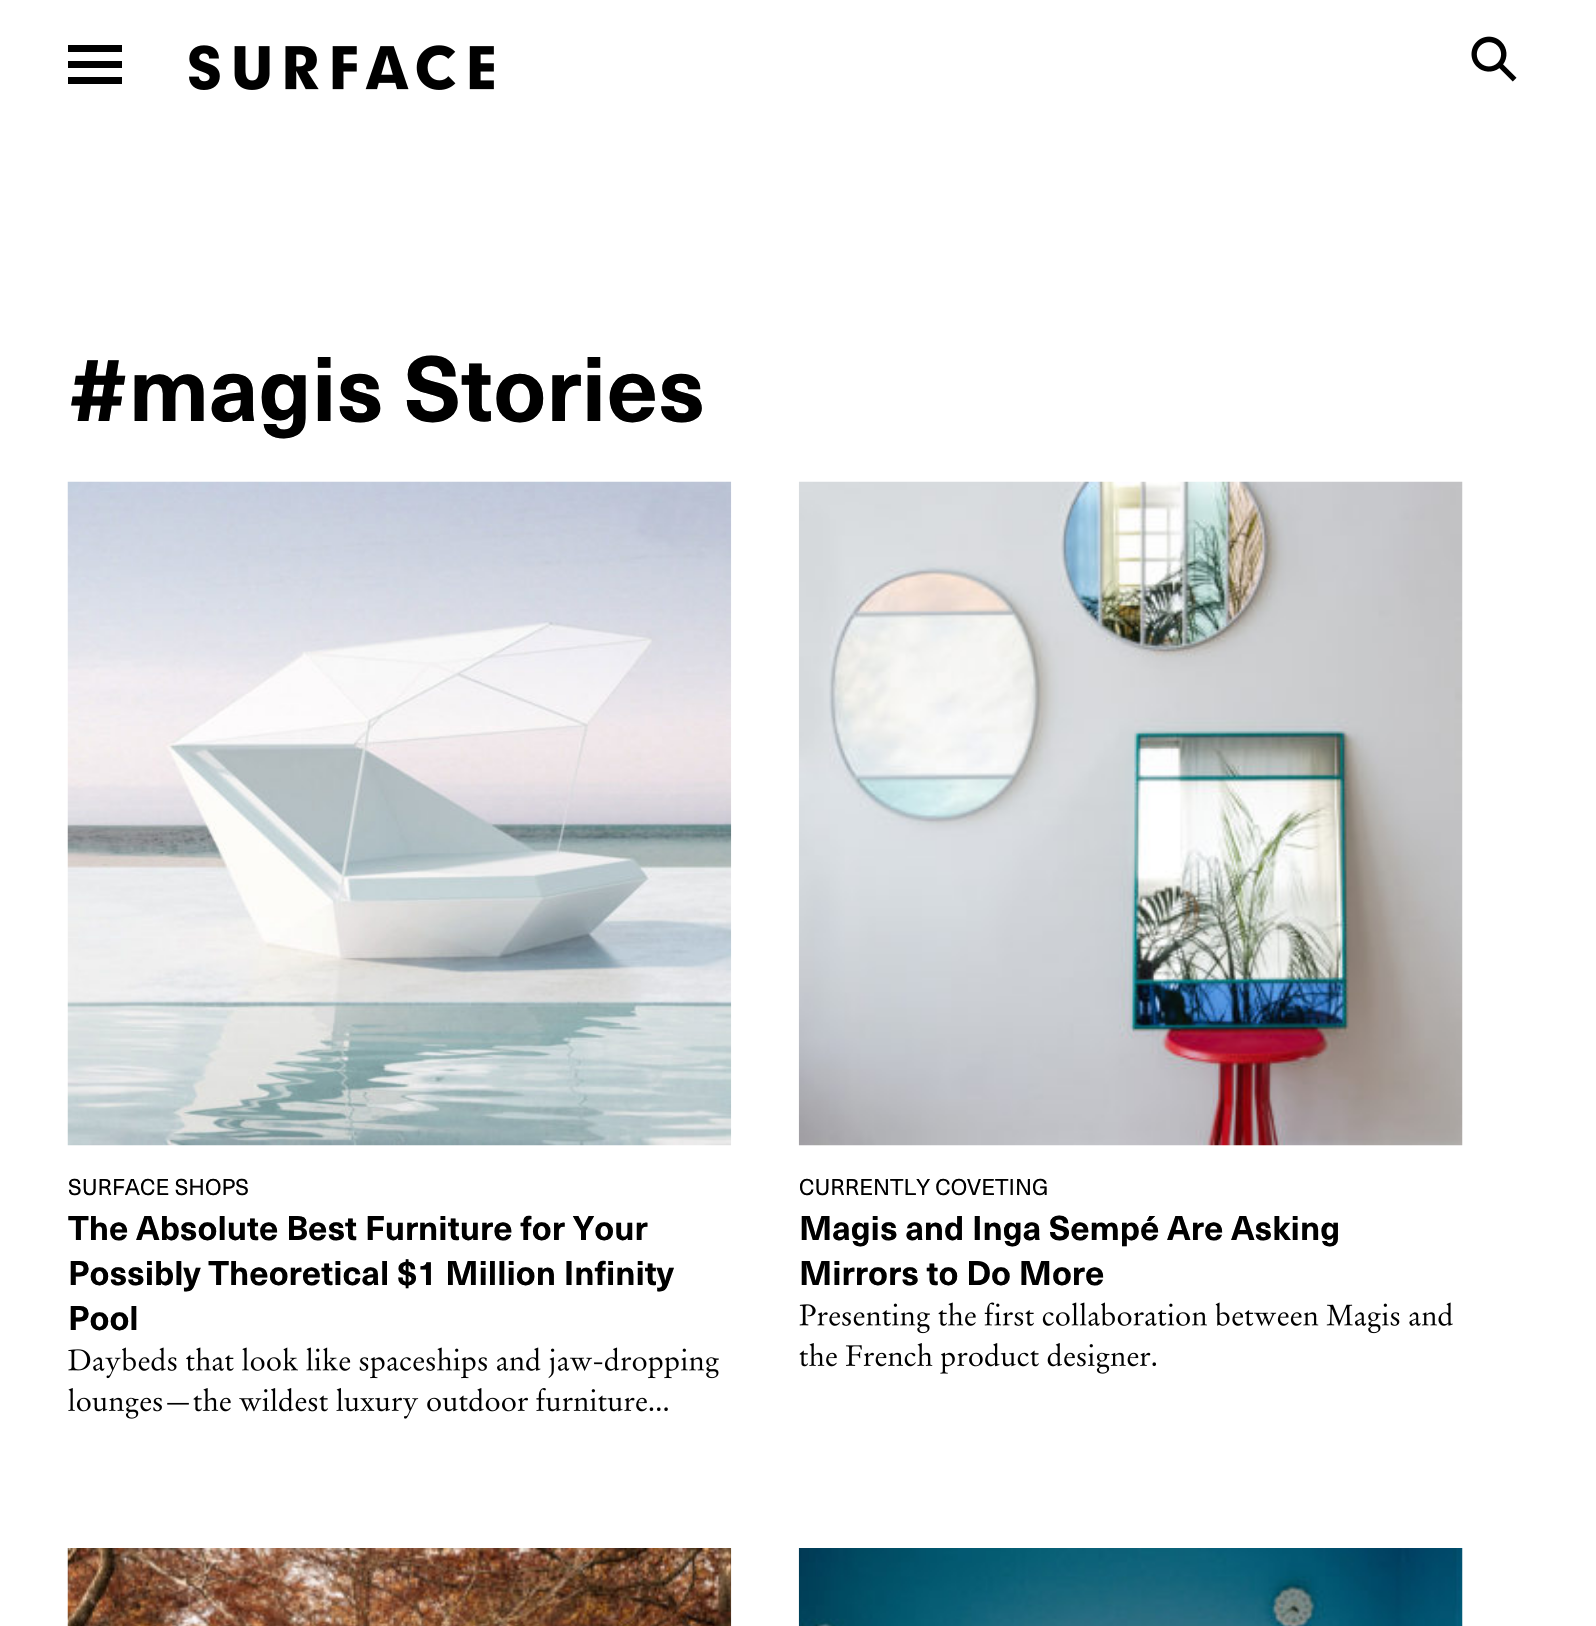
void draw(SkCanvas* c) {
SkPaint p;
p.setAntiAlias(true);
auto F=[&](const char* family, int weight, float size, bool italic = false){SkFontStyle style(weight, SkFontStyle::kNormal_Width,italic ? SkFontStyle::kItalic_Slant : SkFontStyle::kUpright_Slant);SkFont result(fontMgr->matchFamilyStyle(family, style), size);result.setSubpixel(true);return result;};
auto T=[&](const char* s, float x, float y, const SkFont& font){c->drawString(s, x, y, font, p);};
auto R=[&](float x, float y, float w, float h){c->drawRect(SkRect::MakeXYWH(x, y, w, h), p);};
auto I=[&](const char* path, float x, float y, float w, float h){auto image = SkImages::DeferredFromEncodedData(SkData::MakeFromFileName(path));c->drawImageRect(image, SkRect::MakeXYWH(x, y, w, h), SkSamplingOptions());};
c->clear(0xffffffff);
p.setColor(0xff000000);
R(68,45,54,7);
R(68,61,54,7);
R(68,77,54,7);
I("1.png",189,45,305,45);
I("2.png",1471,36,46,46);
auto f1 = F("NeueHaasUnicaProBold",400,90);
T("#magis Stories",68,421,f1);
I("3.png",67,481,665,665);
auto f2 = F("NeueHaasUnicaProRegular",400,22.5);
T("SURFACE SHOPS",68,1195,f2);
c->save();
c->clipRect(SkRect::MakeXYWH(68,482,663,942));
auto f3 = F("NeueHaasUnicaProBold",400,33.75);
T("The Absolute Best Furniture for Your",68,1240,f3);
c->restore();
T("Possibly Theoretical $1 Million Infinity",68,1285,f3);
T("Pool",68,1330,f3);
I("4.png",68,1347,651,32);
I("5.png",68,1388,600,31);
I("6.png",798,481,665,665);
T("CURRENTLY COVETING",799,1195,f2);
T("Magis and Inga Sempé Are Asking",799,1240,f3);
T("Mirrors to Do More",799,1285,f3);
I("7.png",799,1302,654,32);
I("8.png",799,1343,357,31);
I("9.png",67,1548,665,78);
I("10.png",798,1548,665,78);
}
